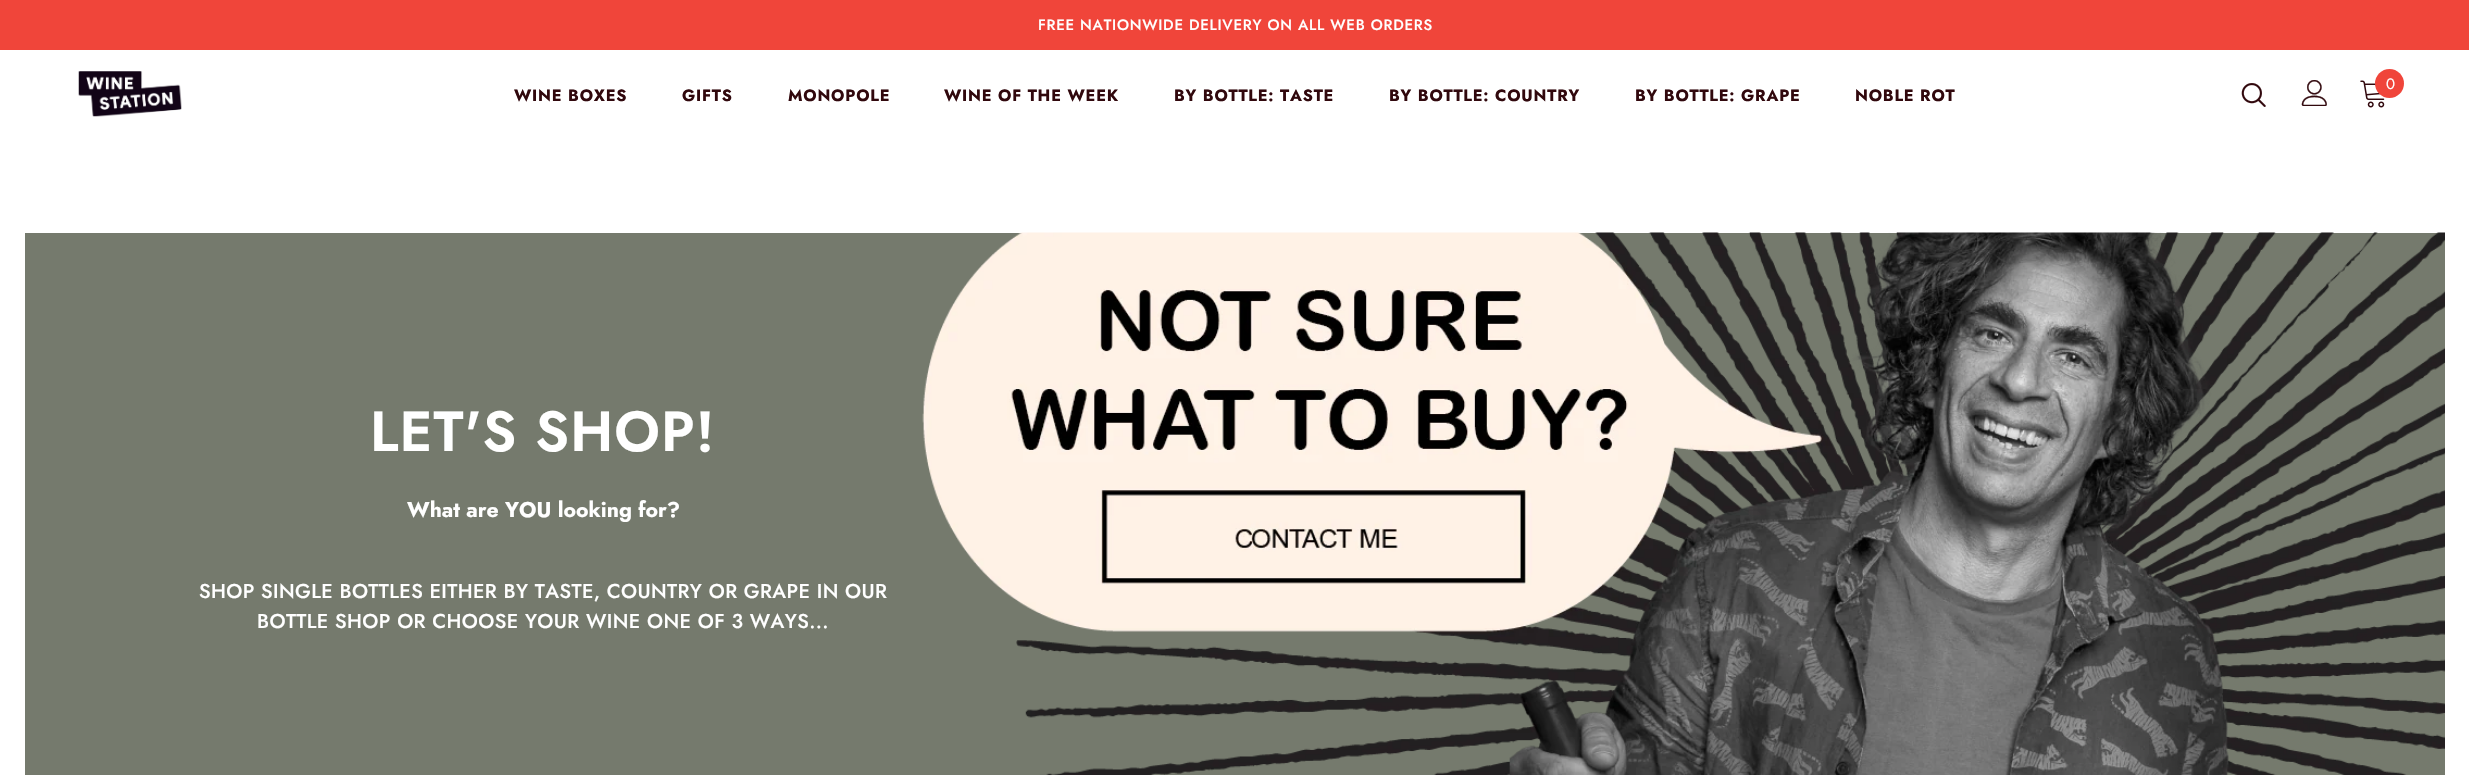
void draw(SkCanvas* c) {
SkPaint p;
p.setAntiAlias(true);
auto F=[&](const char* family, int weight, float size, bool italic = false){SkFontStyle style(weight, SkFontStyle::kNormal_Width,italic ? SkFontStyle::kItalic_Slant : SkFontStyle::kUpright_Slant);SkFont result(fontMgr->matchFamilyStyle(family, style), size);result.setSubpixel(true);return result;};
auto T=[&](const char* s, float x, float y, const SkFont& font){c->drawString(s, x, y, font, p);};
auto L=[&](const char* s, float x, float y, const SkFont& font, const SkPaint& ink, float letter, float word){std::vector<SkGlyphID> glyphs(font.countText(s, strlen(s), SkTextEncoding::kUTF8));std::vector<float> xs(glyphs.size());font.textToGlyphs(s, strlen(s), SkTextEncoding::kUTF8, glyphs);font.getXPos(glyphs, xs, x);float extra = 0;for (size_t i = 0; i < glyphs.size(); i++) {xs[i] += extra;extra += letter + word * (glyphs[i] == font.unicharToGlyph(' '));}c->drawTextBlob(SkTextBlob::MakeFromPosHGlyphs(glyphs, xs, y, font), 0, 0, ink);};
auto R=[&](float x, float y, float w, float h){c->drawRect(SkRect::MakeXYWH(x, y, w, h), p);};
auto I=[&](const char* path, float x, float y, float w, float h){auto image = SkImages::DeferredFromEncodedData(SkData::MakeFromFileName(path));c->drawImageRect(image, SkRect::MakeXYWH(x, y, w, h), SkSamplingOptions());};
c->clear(0xffffffff);
p.setColor(0xfff0453a);
R(0,0,2469,50);
auto f1 = F("Jost",500,15);
p.setColor(0xffffffff);
L("FREE NATIONWIDE DELIVERY ON ALL WEB ORDERS",1038,30,f1,p,.75,0);
I("1.png",78,71,104,46);
I("2.png",2241,83,25,24);
I("3.png",2301,80,26,26);
I("4.png",2360,80,25,28);
p.setColor(0xfff0453a);
c->drawCircle(2389.5,83.5,14.5,p);
auto f2 = F("Jost",400,15);
p.setColor(0xffffffff);
T("0",2386,89,f2);
auto f3 = F("Jost",700,16.25);
p.setColor(0xff31080d);
L("WINE BOXES",514,101,f3,p,.8,0);
L("GIFTS",682,101,f3,p,.8,0);
L("MONOPOLE",788,101,f3,p,.8,0);
L("WINE OF THE WEEK",944,101,f3,p,.8,0);
L("BY BOTTLE: TASTE",1174,101,f3,p,.8,0);
L("BY BOTTLE: COUNTRY",1389,101,f3,p,.8,0);
L("BY BOTTLE: GRAPE",1635,101,f3,p,.8,0);
L("NOBLE ROT",1855,101,f3,p,.8,0);
p.setColor(0xff757a6d);
R(25,233,2420,542);
I("5.png",922,232,1523,543);
auto f4 = F("Jost",600,56.25);
p.setColor(0xffffffff);
L("LET'S SHOP!",370,451,f4,p,1.1,0);
auto f5 = F("Jost",700,21.25);
T("What are YOU looking for?",407,517,f5);
auto f6 = F("Jost",500,20);
L("SHOP SINGLE BOTTLES EITHER BY TASTE, COUNTRY OR GRAPE IN OUR",199,598,f6,p,.4,0);
L("BOTTLE SHOP OR CHOOSE YOUR WINE ONE OF 3 WAYS...",257,628,f6,p,.4,0);
}
